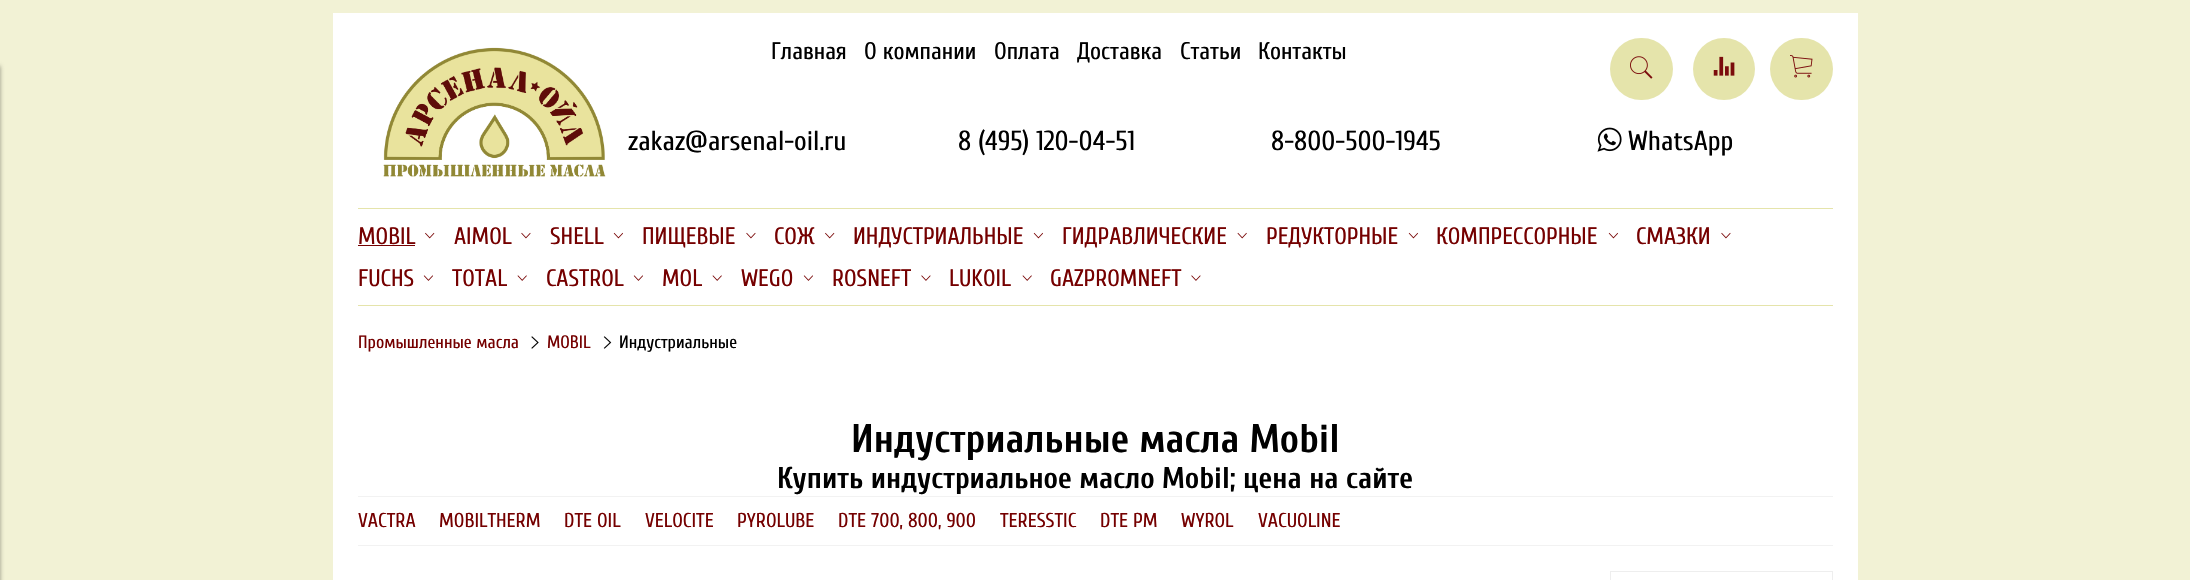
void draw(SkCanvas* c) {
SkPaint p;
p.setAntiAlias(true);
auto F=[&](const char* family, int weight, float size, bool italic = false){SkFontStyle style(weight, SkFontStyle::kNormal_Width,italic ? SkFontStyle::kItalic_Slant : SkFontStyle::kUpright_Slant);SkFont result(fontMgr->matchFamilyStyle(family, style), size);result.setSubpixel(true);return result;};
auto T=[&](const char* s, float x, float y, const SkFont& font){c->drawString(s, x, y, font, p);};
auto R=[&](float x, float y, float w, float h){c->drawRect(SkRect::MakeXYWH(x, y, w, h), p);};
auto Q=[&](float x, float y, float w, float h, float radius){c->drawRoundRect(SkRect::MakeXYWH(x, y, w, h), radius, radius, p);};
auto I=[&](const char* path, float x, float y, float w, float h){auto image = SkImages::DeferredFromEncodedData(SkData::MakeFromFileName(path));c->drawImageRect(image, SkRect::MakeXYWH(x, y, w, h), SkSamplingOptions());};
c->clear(0xfff2f2d5);
p.setColor(0x66000000);
p.setMaskFilter(SkMaskFilter::MakeBlur(kNormal_SkBlurStyle, 2));
c->drawRect(SkRect::MakeXYWH(-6,66,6,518),p);
p.setMaskFilter(nullptr);
p.setColor(0xffffffff);
R(333,13,1525,567);
I("1.png",383,47,223,130);
auto f1 = F("Cuprum",400,24);
p.setColor(0xff000000);
T("Главная",771,59,f1);
T("О компании",864,59,f1);
T("Оплата",994,59,f1);
T("Доставка",1077,59,f1);
T("Статьи",1180,59,f1);
T("Контакты",1258,59,f1);
p.setColor(0xffe5e4ab);
Q(1610,38,63,62,31);
I("2.png",1630,56,23,23);
c->drawCircle(1724,69,31,p);
I("3.png",1713,56,22,20);
Q(1770,38,63,62,31);
I("4.png",1790,55,23,23);
auto f2 = F("Cuprum",400,27.5);
p.setColor(0xff000000);
T("zakaz@arsenal-oil.ru",628,150,f2);
T("8 (495) 120-04-51",958,150,f2);
T("8-800-500-1945",1271,150,f2);
I("5.png",1597,127,25,25);
T("WhatsApp",1628,150,f2);
p.setColor(0xffe5e4ab);
R(358,208,1475,1);
auto f3 = F("Cuprum",400,23.75);
p.setColor(0xff750000);
T("MOBIL",358,244,f3);
R(358,245,57,1);
I("6.png",425,232,10,7);
T("AIMOL",454,244,f3);
I("7.png",521,232,10,7);
T("SHELL",550,244,f3);
I("8.png",613,232,10,7);
T("ПИЩЕВЫЕ",642,244,f3);
I("7.png",746,232,10,7);
T("СОЖ",774,244,f3);
I("6.png",825,232,10,7);
T("ИНДУСТРИАЛЬНЫЕ",853,244,f3);
I("8.png",1033,232,10,7);
T("ГИДРАВЛИЧЕСКИЕ",1062,244,f3);
I("9.png",1237,232,10,7);
T("РЕДУКТОРНЫЕ",1266,244,f3);
I("8.png",1408,232,10,7);
T("КОМПРЕССОРНЫЕ",1436,244,f3);
I("8.png",1608,232,10,7);
T("СМАЗКИ",1636,244,f3);
I("7.png",1721,232,10,7);
T("FUCHS",358,286,f3);
I("10.png",423,275,10,6);
T("TOTAL",452,286,f3);
I("11.png",517,275,10,6);
T("CASTROL",546,286,f3);
I("10.png",633,275,10,6);
T("MOL",662,286,f3);
I("11.png",712,275,10,6);
T("WEGO",741,286,f3);
I("10.png",803,275,10,6);
T("ROSNEFT",832,286,f3);
I("12.png",921,275,10,6);
T("LUKOIL",949,286,f3);
I("11.png",1022,275,10,6);
T("GAZPROMNEFT",1050,286,f3);
I("12.png",1191,275,10,6);
p.setColor(0xffe5e4ab);
R(358,305,1475,1);
auto f4 = F("Cuprum",400,18);
p.setColor(0xff750000);
T("Промышленные масла",358,348,f4);
I("13.png",531,336,8,13);
T("MOBIL",547,348,f4);
I("14.png",603,336,9,13);
p.setColor(0xff000000);
T("Индустриальные",619,348,f4);
auto f5 = F("Cuprum",700,40);
T("Индустриальные масла Mobil",851,452,f5);
auto f6 = F("Cuprum",700,30);
T("Купить индустриальное масло Mobil; цена на сайте",777,488,f6);
p.setColor(0xfff2f2f2);
R(358,496,1475,1);
R(358,545,1475,1);
auto f7 = F("Cuprum",400,20);
p.setColor(0xff750000);
T("VACTRA",358,527,f7);
T("MOBILTHERM",439,527,f7);
T("DTE OIL",564,527,f7);
T("VELOCITE",645,527,f7);
T("PYROLUBE",737,527,f7);
T("DTE 700, 800, 900",838,527,f7);
T("TERESSTIC",1000,527,f7);
T("DTE PM",1100,527,f7);
T("WYROL",1181,527,f7);
T("VACUOLINE",1258,527,f7);
p.setStroke(true);
p.setStrokeWidth(1);
p.setColor(0xffeeeeee);
c->drawRect(SkRect::MakeXYWH(1610.5,571.5,222,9),p);
}
